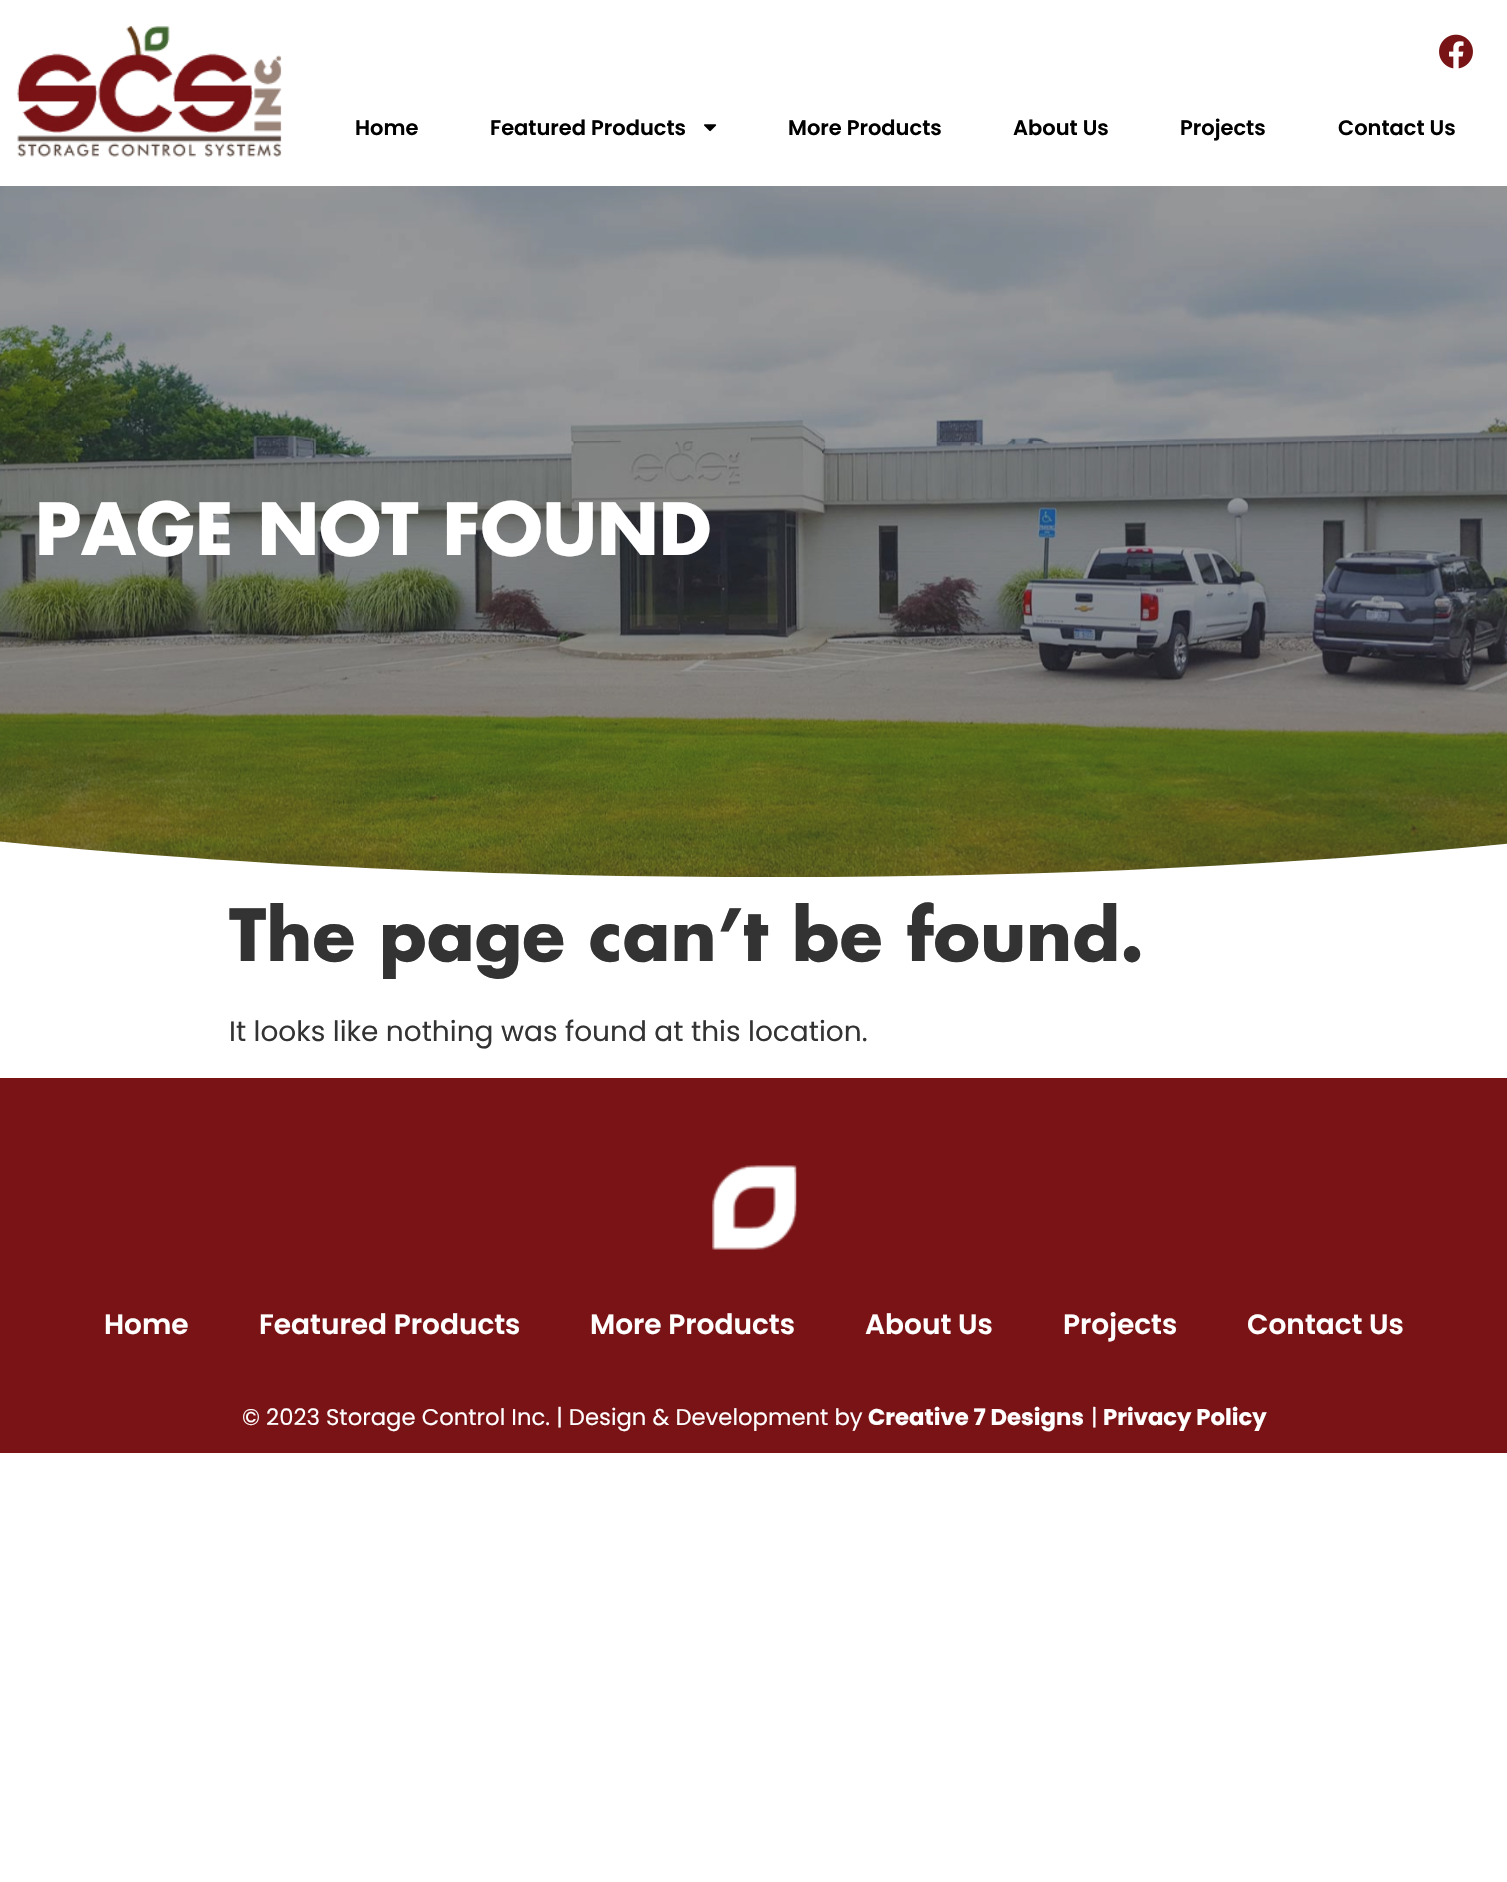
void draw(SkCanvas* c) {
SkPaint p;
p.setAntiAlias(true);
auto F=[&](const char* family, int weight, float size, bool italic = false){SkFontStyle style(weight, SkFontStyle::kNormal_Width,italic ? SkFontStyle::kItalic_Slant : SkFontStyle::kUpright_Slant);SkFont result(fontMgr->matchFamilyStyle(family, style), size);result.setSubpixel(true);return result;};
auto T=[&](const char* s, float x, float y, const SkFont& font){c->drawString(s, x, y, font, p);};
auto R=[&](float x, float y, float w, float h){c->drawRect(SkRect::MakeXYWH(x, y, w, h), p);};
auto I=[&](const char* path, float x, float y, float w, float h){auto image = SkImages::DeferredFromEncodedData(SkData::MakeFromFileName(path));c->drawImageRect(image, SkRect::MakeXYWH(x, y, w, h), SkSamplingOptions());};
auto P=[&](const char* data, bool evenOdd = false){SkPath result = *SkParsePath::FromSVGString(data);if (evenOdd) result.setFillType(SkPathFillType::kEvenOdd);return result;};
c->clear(0xffffffff);
I("1.png",17,26,265,131);
I("2.png",1439,34,34,35);
auto f1 = F("Poppins",600,21);
p.setColor(0xff000000);
T("Home",355,135,f1);
T("Featured Products",490,135,f1);
I("3.png",704,124,13,8);
T("More Products",788,135,f1);
T("About Us",1013,135,f1);
T("Projects",1180,135,f1);
T("Contact Us",1338,135,f1);
I("4.png",0,186,1507,691);
auto f2 = F("Futura",700,70);
p.setColor(0xffffffff);
T("PAGE NOT FOUND",35,555,f2);
c->save();
c->clipRect(SkRect::MakeXYWH(0,529,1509,358));
c->drawPath(P("M754 877c-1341-3-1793-277-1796-349v360h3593v-356c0 66-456 348-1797 345z"),p);
c->restore();
p.setColor(0xff333333);
T("The page can’t be found.",229,961,f2);
auto f3 = F("Poppins",400,28);
T("It looks like nothing was found at this location.",229,1041,f3);
p.setColor(0xff7a1316);
R(0,1078,1507,375);
I("5.png",712,1165,85,85);
auto f4 = F("Poppins",600,28);
p.setColor(0xffffffff);
T("Home",104,1334,f4);
T("Featured Products",259,1334,f4);
T("More Products",590,1334,f4);
T("About Us",865,1334,f4);
T("Projects",1063,1334,f4);
T("Contact Us",1247,1334,f4);
auto f5 = F("Poppins",400,22.75);
T("© 2023 Storage Control Inc. | Design & Development by",242,1425,f5);
auto f6 = F("Poppins",700,22.75);
T("Creative 7 Designs",868,1425,f6);
T("|",1091,1425,f5);
T("Privacy Policy",1103,1425,f6);
}
